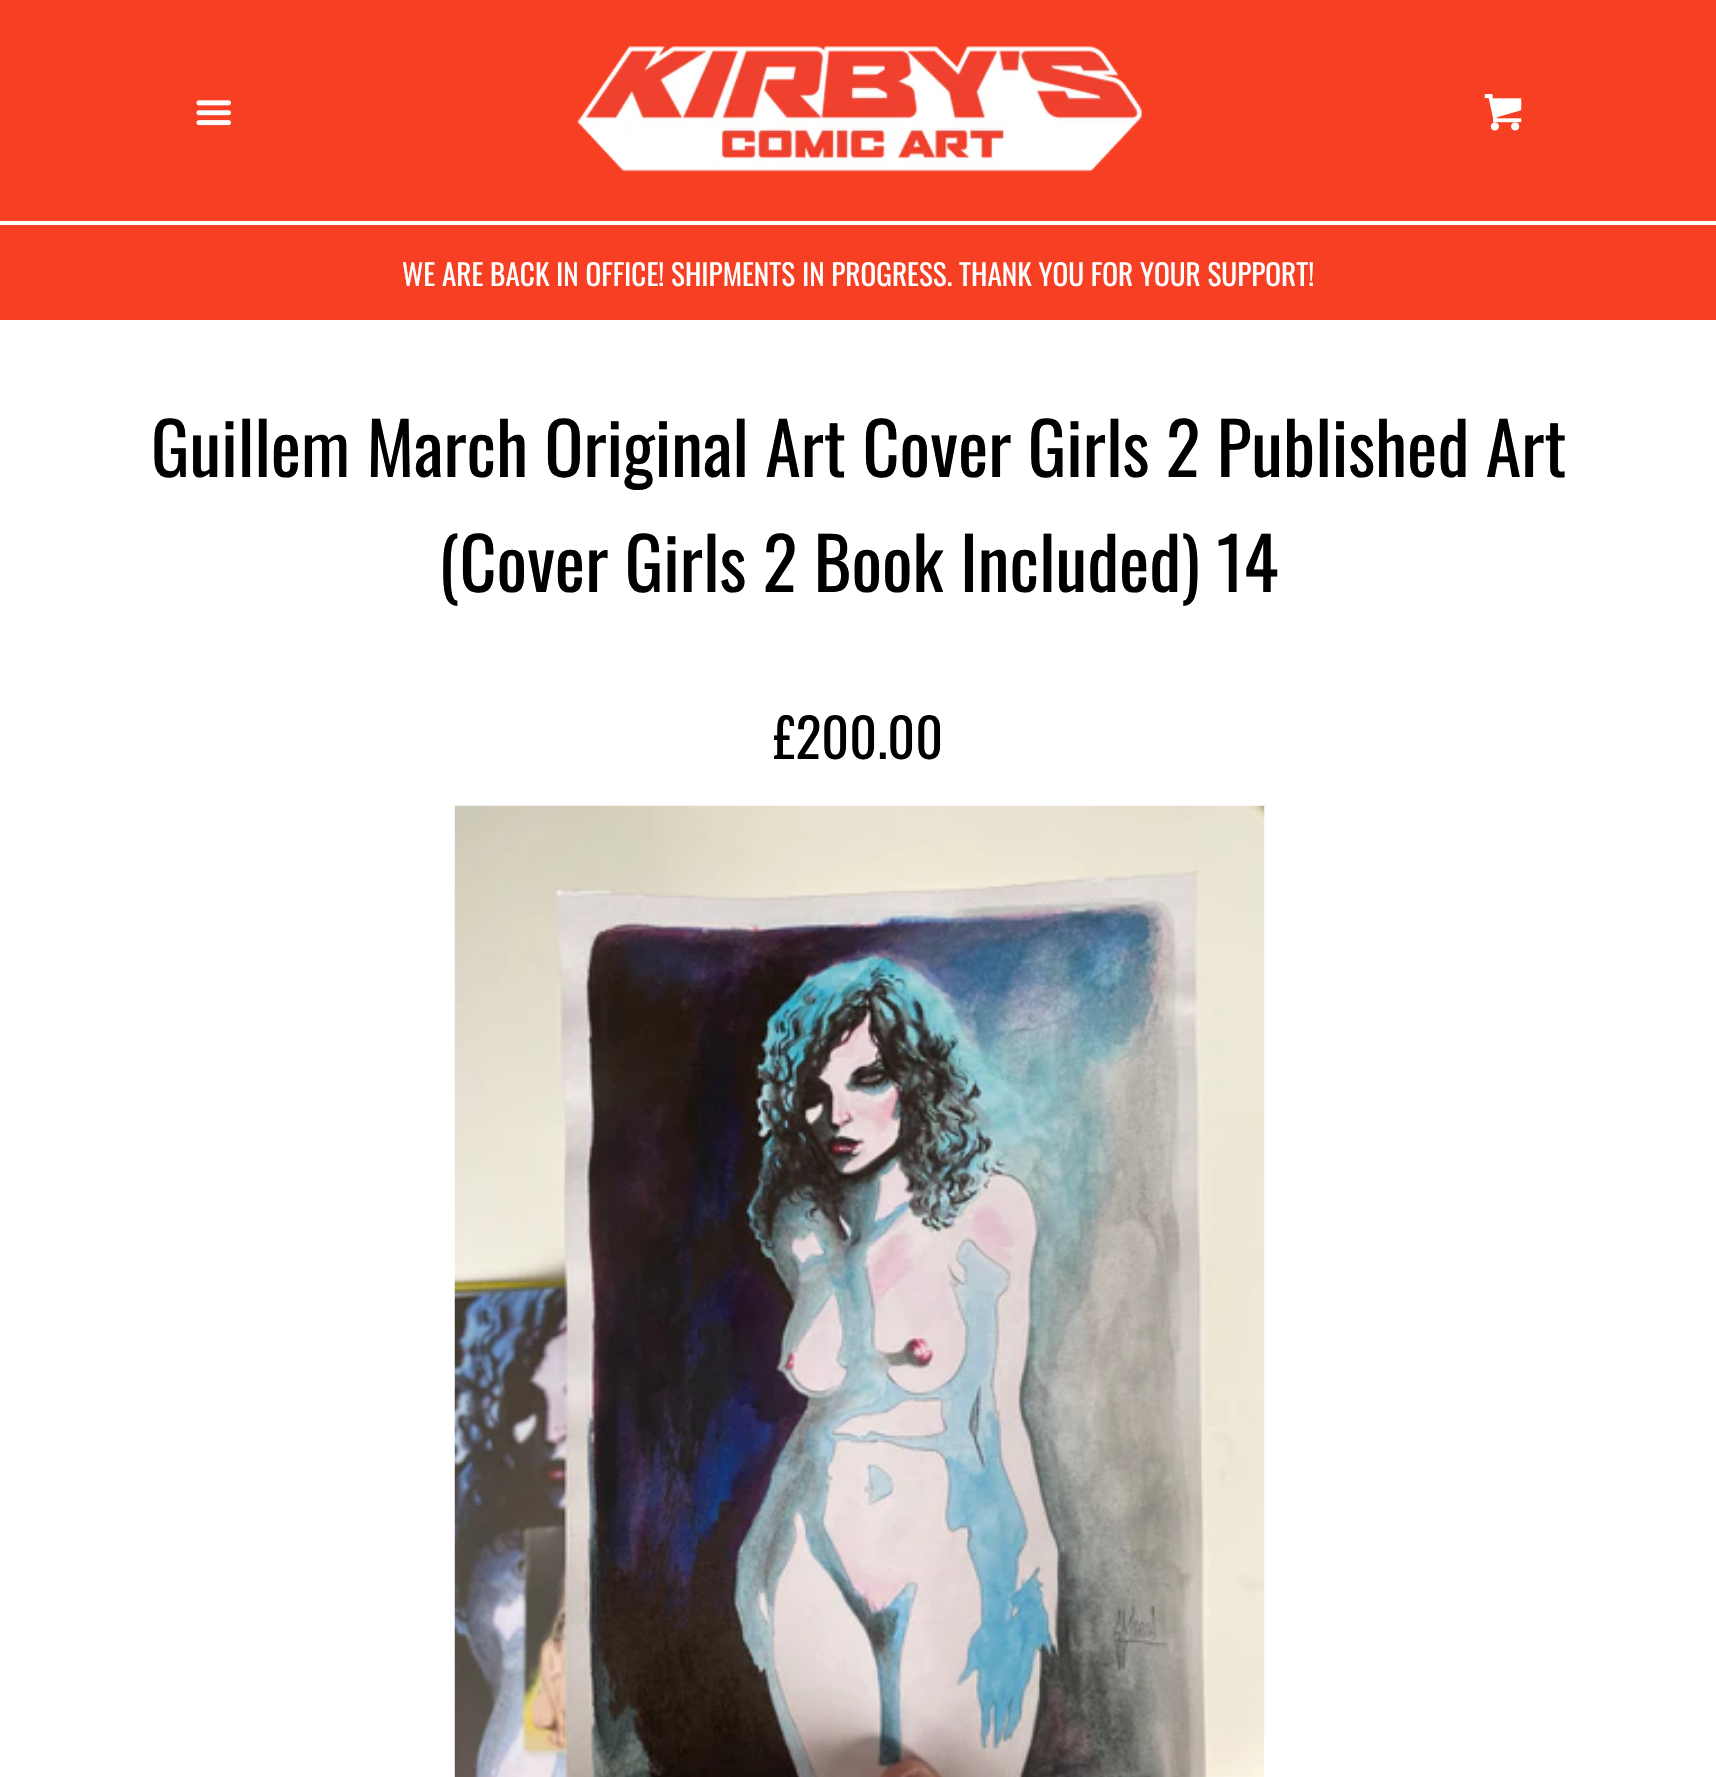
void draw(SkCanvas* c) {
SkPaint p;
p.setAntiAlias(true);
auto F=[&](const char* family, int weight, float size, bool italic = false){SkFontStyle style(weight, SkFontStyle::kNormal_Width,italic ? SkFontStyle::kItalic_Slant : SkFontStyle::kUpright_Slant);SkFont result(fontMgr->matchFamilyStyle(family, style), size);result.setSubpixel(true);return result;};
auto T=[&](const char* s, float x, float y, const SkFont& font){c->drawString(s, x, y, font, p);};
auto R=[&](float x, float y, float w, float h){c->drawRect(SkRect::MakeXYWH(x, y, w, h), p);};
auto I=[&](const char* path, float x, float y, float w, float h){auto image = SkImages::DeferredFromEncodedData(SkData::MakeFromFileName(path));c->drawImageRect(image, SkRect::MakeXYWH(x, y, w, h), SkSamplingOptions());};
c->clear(0xfff73f23);
p.setColor(0xffffffff);
R(0,221,1716,4);
I("1.png",196,100,35,26);
I("2.png",577,46,565,126);
I("3.png",1484,94,38,37);
R(0,320,1716,1457);
auto f1 = F("Oswald",400,29.25);
T("WE ARE BACK IN OFFICE! SHIPMENTS IN PROGRESS. THANK YOU FOR YOUR SUPPORT!",402,286,f1);
auto f2 = F("Oswald",400,72);
p.setColor(0xff000000);
T("Guillem March Original Art Cover Girls 2 Published Art",151,477,f2);
T("(Cover Girls 2 Book Included) 14",438,592,f2);
auto f3 = F("Oswald",400,54);
T("£200.00",774,759,f3);
I("4.png",454,805,811,972);
}
